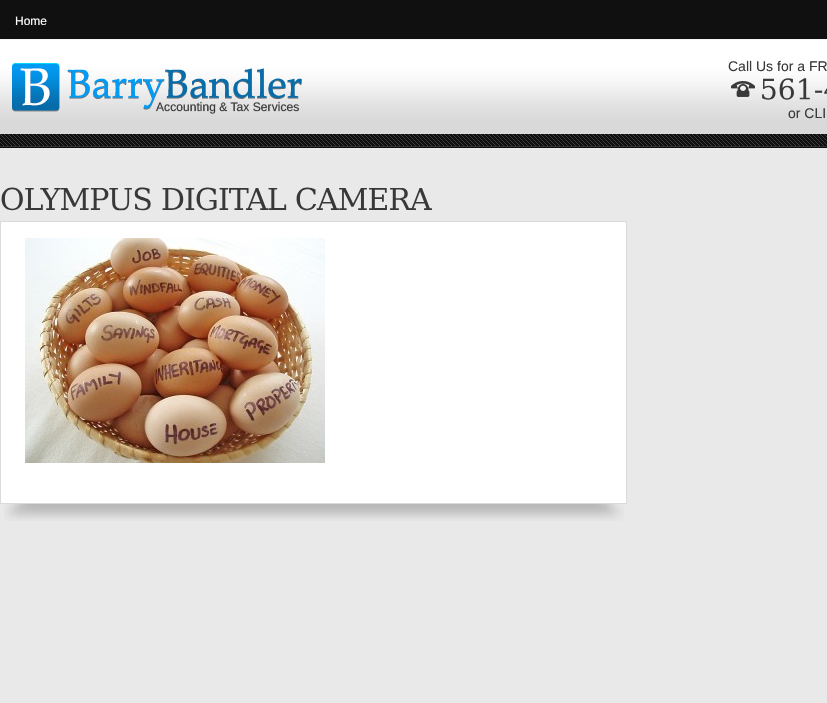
void draw(SkCanvas* c) {
SkPaint p;
p.setAntiAlias(true);
auto F=[&](const char* family, int weight, float size, bool italic = false){SkFontStyle style(weight, SkFontStyle::kNormal_Width,italic ? SkFontStyle::kItalic_Slant : SkFontStyle::kUpright_Slant);SkFont result(fontMgr->matchFamilyStyle(family, style), size);result.setSubpixel(true);return result;};
auto T=[&](const char* s, float x, float y, const SkFont& font){c->drawString(s, x, y, font, p);};
auto I=[&](const char* path, float x, float y, float w, float h){auto image = SkImages::DeferredFromEncodedData(SkData::MakeFromFileName(path));c->drawImageRect(image, SkRect::MakeXYWH(x, y, w, h), SkSamplingOptions());};
c->clear(0xffe9e9e9);
I("1.png",0,0,827,148);
auto f1 = F("Liberation Sans",400,12);
p.setColor(0xffffffff);
T("Home",15,25,f1);
I("2.png",12,63,290,51);
auto f2 = F("Liberation Sans",400,14);
p.setColor(0xff393939);
T("Call Us for a FR",728,71,f2);
I("3.png",731,81,24,16);
I("4.png",762,78,65,22);
T("or CLI",788,118,f2);
I("5.png",4,504,620,17);
I("6.png",1,187,150,24);
I("7.png",162,187,125,24);
I("8.png",296,187,136,24);
p.setColor(0xffffffff);
c->drawRect(SkRect::MakeXYWH(.5,221.5,626,282),p);
p.setStroke(true);
p.setStrokeWidth(1);
p.setColor(0xffdadada);
c->drawRect(SkRect::MakeXYWH(.5,221.5,626,282),p);
I("9.png",25,238,300,225);
}
